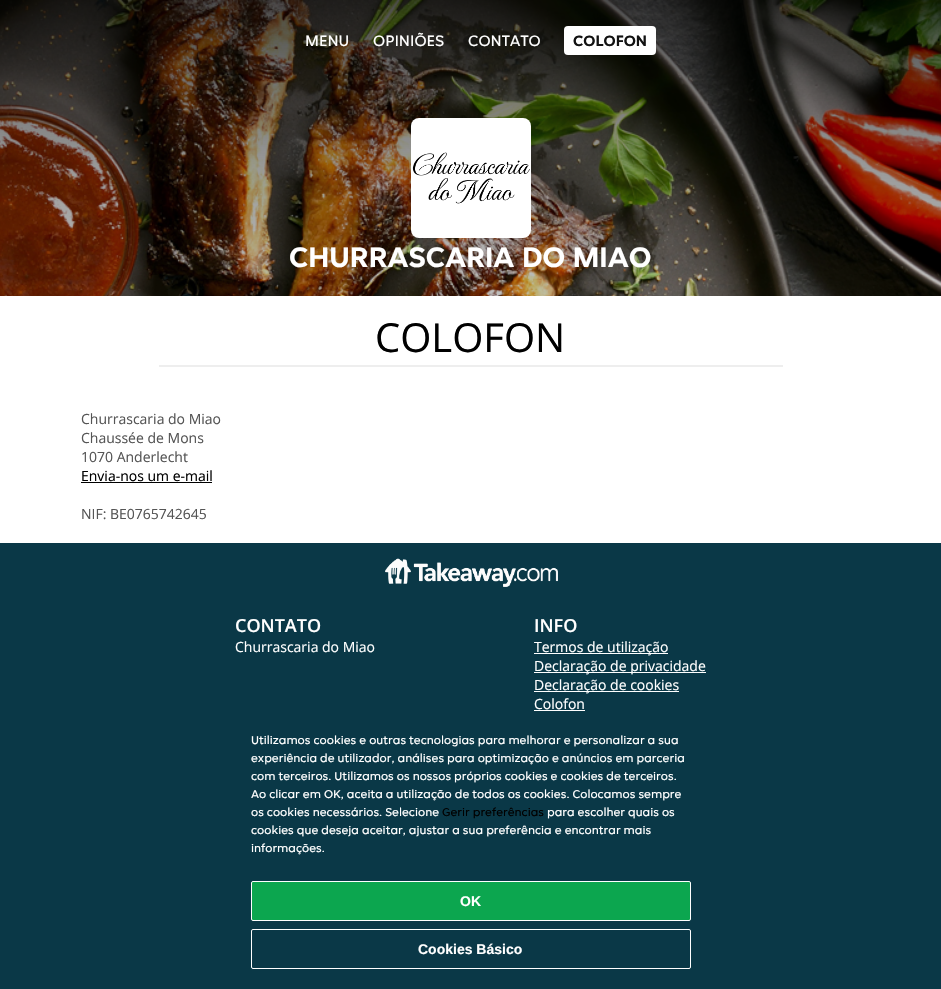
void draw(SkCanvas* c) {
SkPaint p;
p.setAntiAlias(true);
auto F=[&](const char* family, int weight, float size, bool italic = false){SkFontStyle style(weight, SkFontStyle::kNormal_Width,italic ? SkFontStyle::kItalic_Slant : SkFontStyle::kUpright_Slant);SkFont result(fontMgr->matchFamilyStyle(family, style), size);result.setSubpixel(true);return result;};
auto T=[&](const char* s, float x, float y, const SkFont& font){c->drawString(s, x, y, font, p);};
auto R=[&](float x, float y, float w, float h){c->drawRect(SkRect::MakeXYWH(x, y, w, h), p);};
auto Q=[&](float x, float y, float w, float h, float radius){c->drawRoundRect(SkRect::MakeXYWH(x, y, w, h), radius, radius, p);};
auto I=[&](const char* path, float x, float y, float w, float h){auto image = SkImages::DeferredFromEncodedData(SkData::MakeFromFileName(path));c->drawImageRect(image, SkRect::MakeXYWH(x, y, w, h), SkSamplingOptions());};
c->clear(0xffffffff);
I("1.png",0,0,941,296);
{
const SkColor colors[] = {0xb3000000,0x66000000,0x33000000,0x00000000};
const float stops[] = {0,.33,.67,1};
const SkPoint ends[] = {{470,0}, {471,500}};
p.setShader(SkGradientShader::MakeLinear(ends, colors, stops, 4, SkTileMode::kClamp));
p.setAlpha(255);
}
R(0,0,941,296);
auto f1 = F("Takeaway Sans",400,16);
p.setShader(nullptr);
p.setColor(0xffffffff);
T("MENU",305,46,f1);
T("OPINIÕES",373,46,f1);
T("CONTATO",468,46,f1);
Q(564,26,92,29,4);
auto f2 = F("Takeaway Sans",700,16);
p.setColor(0xff121212);
T("COLOFON",573,46,f2);
p.setColor(0xffffffff);
Q(411,118,120,120,8);
I("2.png",412,152,118,52);
auto f3 = F("Takeaway Sans",700,30);
T("CHURRASCARIA DO MIAO",289,267,f3);
auto f4 = F("Open Sans",400,40);
p.setColor(0xff000000);
T("COLOFON",375,352,f4);
p.setColor(0xffeeeeee);
R(159,365,624,2);
auto f5 = F("Open Sans",400,14);
p.setColor(0xff555555);
T("Churrascaria do Miao",81,424,f5);
T("Chaussée de Mons",81,443,f5);
T("1070 Anderlecht",81,462,f5);
p.setColor(0xff000000);
T("Envia-nos um e-mail",81,481,f5);
R(81,482,131,1);
p.setColor(0xff555555);
T("NIF: BE0765742645",81,519,f5);
p.setColor(0xff0a3847);
R(0,543,941,446);
I("3.png",385,558,173,29);
auto f6 = F("Open Sans",600,18);
p.setColor(0xffffffff);
T("CONTATO",235,632,f6);
T("Churrascaria do Miao",235,652,f5);
T("INFO",534,632,f6);
R(534,653,134,1);
T("Termos de utilização",534,652,f5);
R(534,672,172,1);
T("Declaração de privacidade",534,671,f5);
R(534,691,145,1);
T("Declaração de cookies",534,690,f5);
T("Colofon",534,709,f5);
R(534,710,51,1);
auto f7 = F("Takeaway Sans",400,12);
T("Utilizamos cookies e outras tecnologias para melhorar e personalizar a sua",251,744,f7);
T("experiência de utilizador, análises para optimização e anúncios em parceria",251,762,f7);
T("com terceiros. Utilizamos os nossos próprios cookies e cookies de terceiros.",251,780,f7);
T("Ao clicar em OK, aceita a utilização de todos os cookies. Colocamos sempre",251,798,f7);
T("os cookies necessários. Selecione",251,816,f7);
p.setColor(0xff000000);
T("Gerir preferências",442,816,f7);
p.setColor(0xffffffff);
T("para escolher quais os",547,816,f7);
T("cookies que deseja aceitar, ajustar a sua preferência e encontrar mais",251,834,f7);
T("informações.",251,852,f7);
p.setColor(0xff0ca64f);
c->drawRoundRect(SkRect::MakeXYWH(251.5,881.5,439,39),1.5,1.5,p);
p.setStroke(true);
p.setStrokeWidth(1);
p.setColor(0xffffffff);
c->drawRoundRect(SkRect::MakeXYWH(251.5,881.5,439,39),1.5,1.5,p);
auto f8 = F("Liberation Sans",700,14);
p.setStroke(false);
T("OK",460,906,f8);
p.setStroke(true);
c->drawRoundRect(SkRect::MakeXYWH(251.5,929.5,439,39),1.5,1.5,p);
p.setStroke(false);
T("Cookies Básico",418,954,f8);
}
